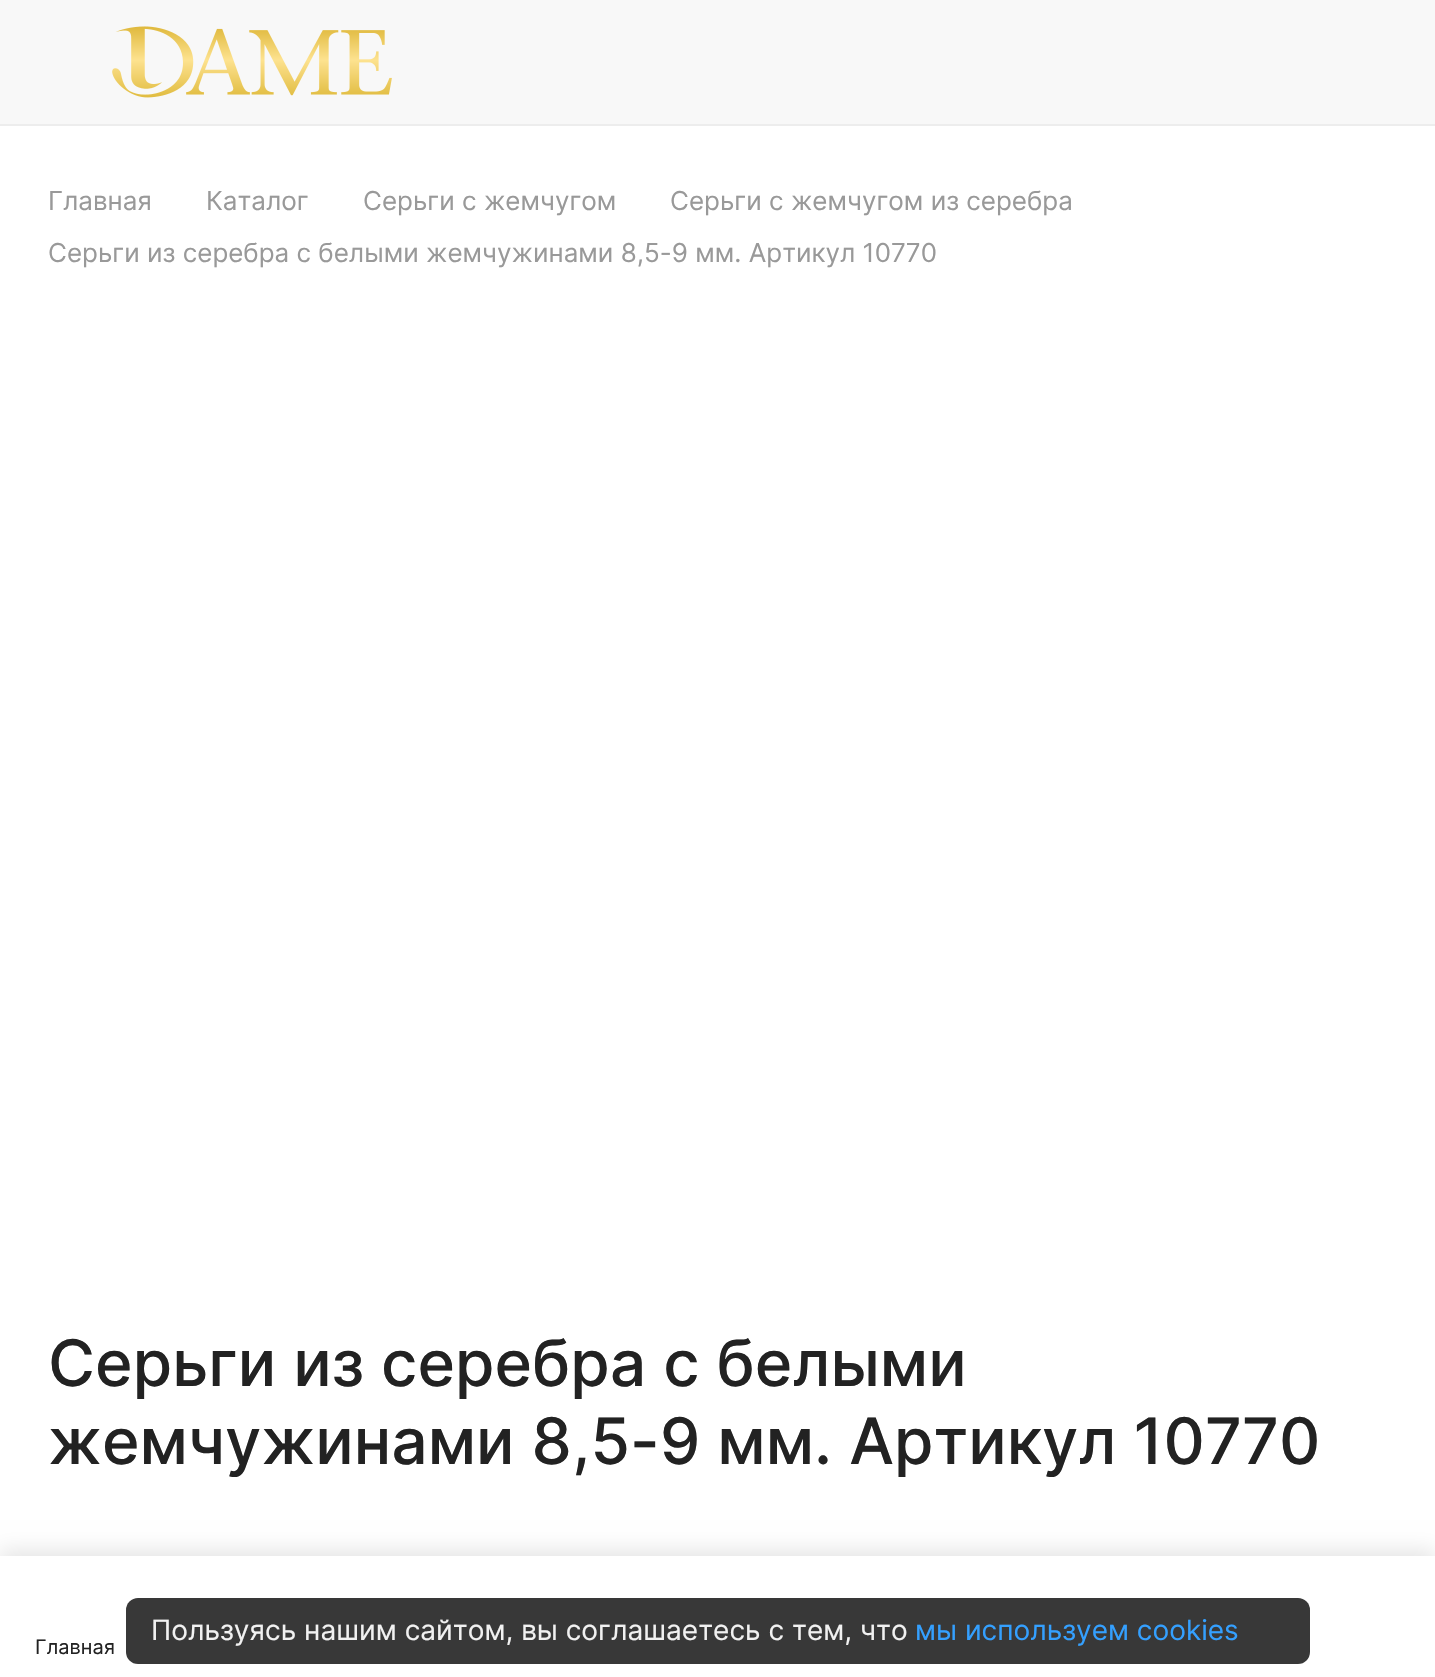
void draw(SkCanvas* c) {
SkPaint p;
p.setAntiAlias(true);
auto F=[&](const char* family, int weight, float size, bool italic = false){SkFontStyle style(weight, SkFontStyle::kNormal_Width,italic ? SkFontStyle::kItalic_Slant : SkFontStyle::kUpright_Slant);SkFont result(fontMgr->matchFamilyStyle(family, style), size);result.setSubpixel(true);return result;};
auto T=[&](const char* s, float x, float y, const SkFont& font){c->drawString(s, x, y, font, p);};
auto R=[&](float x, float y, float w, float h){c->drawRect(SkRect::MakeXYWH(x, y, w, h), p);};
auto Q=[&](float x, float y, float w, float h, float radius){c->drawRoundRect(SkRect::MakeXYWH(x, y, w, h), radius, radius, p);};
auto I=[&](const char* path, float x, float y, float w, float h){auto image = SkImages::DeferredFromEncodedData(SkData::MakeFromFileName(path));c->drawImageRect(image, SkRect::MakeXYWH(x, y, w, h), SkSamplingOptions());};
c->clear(0xffffffff);
p.setColor(0xffededed);
R(0,124,1435,2);
p.setColor(0xfff8f8f8);
R(0,0,1435,124);
I("1.png",112,26,280,72);
auto f1 = F("Inter",400,26);
p.setColor(0xff999999);
T("Главная",48,210,f1);
T("Каталог",206,210,f1);
T("Серьги с жемчугом",363,210,f1);
T("Серьги с жемчугом из серебра",670,210,f1);
T("Серьги из серебра с белыми жемчужинами 8,5-9 мм. Артикул 10770",48,262,f1);
auto f2 = F("Inter",500,64);
p.setColor(0xff222222);
T("Серьги из серебра с белыми",48,1386,f2);
T("жемчужинами 8,5-9 мм. Артикул 10770",48,1464,f2);
p.setColor(0x1a000000);
p.setMaskFilter(SkMaskFilter::MakeBlur(kNormal_SkBlurStyle, 10));
c->drawRect(SkRect::MakeXYWH(0,1550,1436,122),p);
p.setMaskFilter(nullptr);
p.setColor(0xffffffff);
R(0,1556,1435,121);
auto f3 = F("Inter",400,20);
p.setColor(0xff222222);
T("Главная",35,1654,f3);
p.setColor(0xc7000000);
Q(126,1598,1184,66,12);
auto f4 = F("Inter",400,28);
p.setColor(0xfff1f1f1);
T("Пользуясь нашим сайтом, вы соглашаетесь с тем, что",151,1640,f4);
p.setColor(0xff34a0ff);
T("мы используем cookies",915,1640,f4);
}
